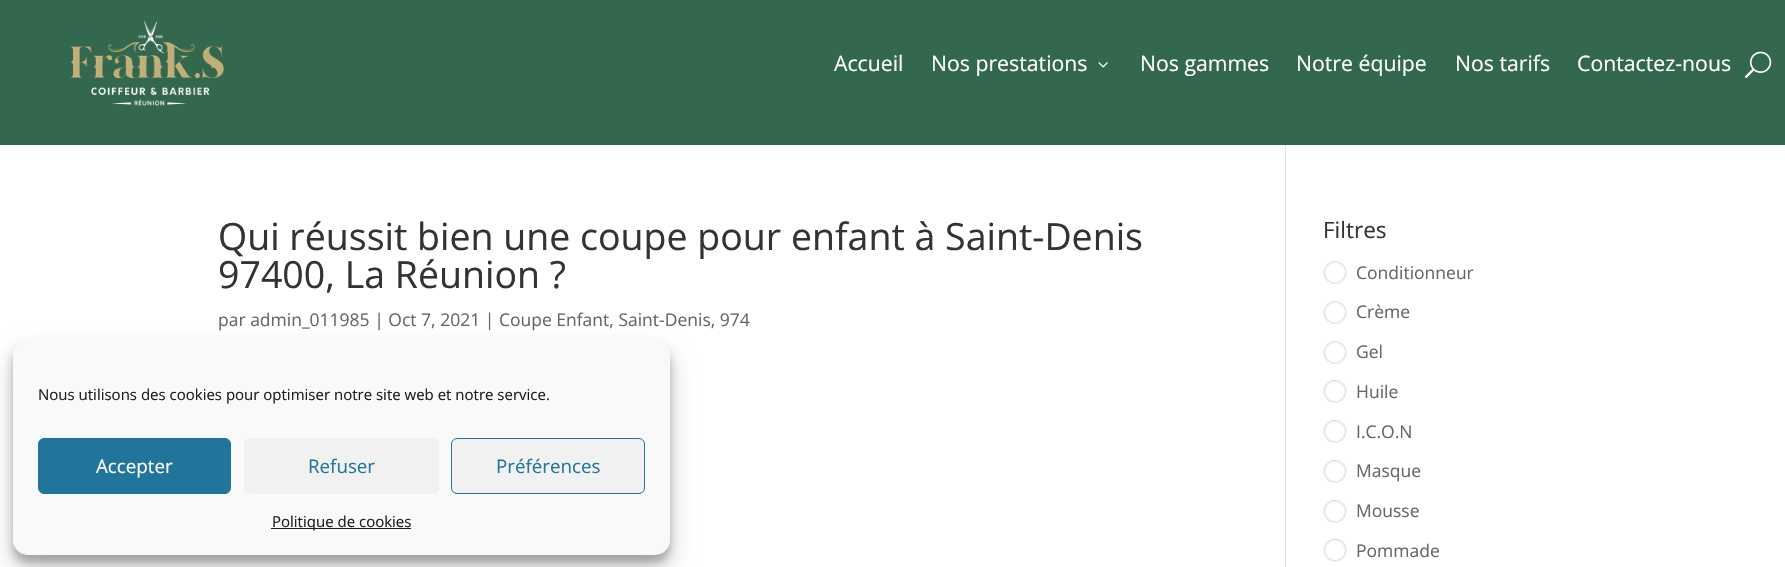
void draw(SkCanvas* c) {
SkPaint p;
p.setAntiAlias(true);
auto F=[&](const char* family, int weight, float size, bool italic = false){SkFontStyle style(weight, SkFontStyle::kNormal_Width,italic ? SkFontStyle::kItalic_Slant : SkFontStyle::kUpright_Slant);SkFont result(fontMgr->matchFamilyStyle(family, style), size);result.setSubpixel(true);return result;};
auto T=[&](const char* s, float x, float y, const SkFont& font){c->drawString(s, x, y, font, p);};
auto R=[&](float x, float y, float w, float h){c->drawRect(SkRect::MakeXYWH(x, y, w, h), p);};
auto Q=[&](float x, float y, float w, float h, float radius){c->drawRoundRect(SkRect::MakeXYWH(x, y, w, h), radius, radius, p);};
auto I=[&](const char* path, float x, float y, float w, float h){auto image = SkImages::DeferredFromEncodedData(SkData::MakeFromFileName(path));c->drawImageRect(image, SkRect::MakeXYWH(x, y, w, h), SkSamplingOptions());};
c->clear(0xffffffff);
p.setColor(0xff33684e);
R(0,0,1785,145);
I("1.png",70,21,154,85);
auto f1 = F("Open Sans",400,21.25);
p.setColor(0xffffffff);
T("Accueil",834,71,f1);
T("Nos prestations",931,71,f1);
I("2.png",1098,62,10,6);
T("Nos gammes",1140,71,f1);
T("Notre équipe",1296,71,f1);
T("Nos tarifs",1455,71,f1);
T("Contactez-nous",1577,71,f1);
I("3.png",1744,51,28,27);
p.setColor(0xffe2e2e2);
R(1285,145,1,422);
auto f2 = F("Open Sans",400,37.5);
p.setColor(0xff333333);
T("Qui réussit bien une coupe pour enfant à Saint-Denis",218,250,f2);
T("97400, La Réunion ?",218,288,f2);
auto f3 = F("Open Sans",400,17.5);
p.setColor(0xff666666);
T("par admin_011985 | Oct 7, 2021 | Coupe Enfant, Saint-Denis, 974",218,326,f3);
auto f4 = F("Open Sans",400,22.5);
p.setColor(0xff333333);
T("Filtres",1323,238,f4);
I("4.png",1323,261,24,23);
p.setColor(0xff666666);
T("Conditionneur",1356,279,f3);
I("4.png",1323,301,24,23);
T("Crème",1356,318,f3);
I("4.png",1323,341,24,23);
T("Gel",1356,358,f3);
I("5.png",1323,380,24,23);
T("Huile",1356,398,f3);
I("5.png",1323,420,24,23);
T("I.C.O.N",1356,438,f3);
I("5.png",1323,460,24,23);
T("Masque",1356,477,f3);
I("5.png",1323,500,24,23);
T("Mousse",1356,517,f3);
I("6.png",1323,538,24,24);
T("Pommade",1356,557,f3);
p.setColor(0x3b000000);
p.setMaskFilter(SkMaskFilter::MakeBlur(kNormal_SkBlurStyle, 4));
c->drawRoundRect(SkRect::MakeXYWH(13,348,657,215),15,15,p);
p.setMaskFilter(nullptr);
p.setColor(0x30000000);
p.setMaskFilter(SkMaskFilter::MakeBlur(kNormal_SkBlurStyle, 12.5));
c->drawRoundRect(SkRect::MakeXYWH(13,353,657,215),15,15,p);
p.setMaskFilter(nullptr);
p.setColor(0xfff9f9f9);
Q(13,340,657,215,15);
auto f5 = F("Open Sans",400,15);
p.setColor(0xff191e23);
T("Nous utilisons des cookies pour optimiser notre site web et notre service.",38,400,f5);
p.setColor(0xff21759b);
c->drawRoundRect(SkRect::MakeXYWH(38.5,438.5,192,55),5.5,5.5,p);
p.setStroke(true);
p.setStrokeWidth(1);
c->drawRoundRect(SkRect::MakeXYWH(38.5,438.5,192,55),5.5,5.5,p);
auto f6 = F("Open Sans",400,18.75);
p.setStroke(false);
p.setColor(0xffffffff);
T("Accepter",96,473,f6);
p.setColor(0xfff1f1f1);
Q(244,438,195,56,6);
p.setColor(0xff21759b);
T("Refuser",308,473,f6);
p.setColor(0xfff1f1f1);
c->drawRoundRect(SkRect::MakeXYWH(451.5,438.5,193,55),5.5,5.5,p);
p.setStroke(true);
p.setColor(0xff21759b);
c->drawRoundRect(SkRect::MakeXYWH(451.5,438.5,193,55),5.5,5.5,p);
p.setStroke(false);
T("Préférences",496,473,f6);
p.setColor(0xff191e23);
R(271,528,140,1);
T("Politique de cookies",272,527,f5);
}
